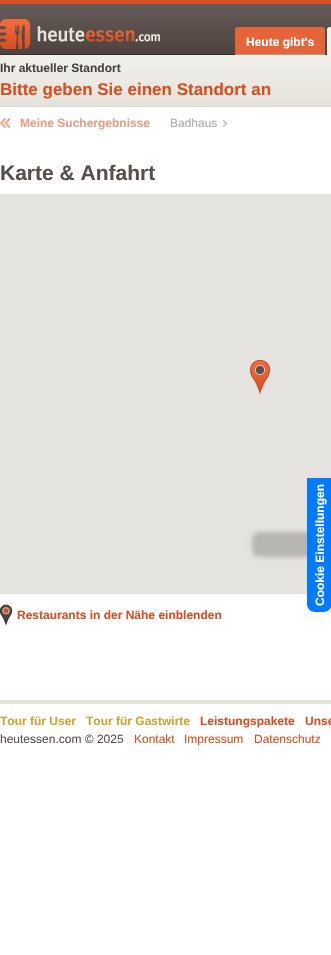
void draw(SkCanvas* c) {
SkPaint p;
p.setAntiAlias(true);
auto F=[&](const char* family, int weight, float size, bool italic = false){SkFontStyle style(weight, SkFontStyle::kNormal_Width,italic ? SkFontStyle::kItalic_Slant : SkFontStyle::kUpright_Slant);SkFont result(fontMgr->matchFamilyStyle(family, style), size);result.setSubpixel(true);return result;};
auto T=[&](const char* s, float x, float y, const SkFont& font){c->drawString(s, x, y, font, p);};
auto R=[&](float x, float y, float w, float h){c->drawRect(SkRect::MakeXYWH(x, y, w, h), p);};
auto I=[&](const char* path, float x, float y, float w, float h){auto image = SkImages::DeferredFromEncodedData(SkData::MakeFromFileName(path));c->drawImageRect(image, SkRect::MakeXYWH(x, y, w, h), SkSamplingOptions());};
auto P=[&](const char* data, bool evenOdd = false){SkPath result = *SkParsePath::FromSVGString(data);if (evenOdd) result.setFillType(SkPathFillType::kEvenOdd);return result;};
c->clear(0xffffffff);
{
const SkColor colors[] = {0xff665c57,0xff4d423d};
const float stops[] = {0,1};
const SkPoint ends[] = {{0,4}, {0,54}};
p.setShader(SkGradientShader::MakeLinear(ends, colors, stops, 2, SkTileMode::kClamp));
p.setAlpha(255);
}
R(0,4,331,50);
p.setShader(nullptr);
p.setColor(0xffd94f21);
R(0,0,331,4);
p.setColor(0xff332c29);
R(0,54,331,1);
I("1.png",0,19,160,30);
p.setColor(0xffe56439);
c->drawPath(P("M238 27h84c1.5 0 3 1.5 3 3v25h-90v-25c0-1.5 1.5-3 3-3z"),p);
c->drawPath(P("M238 27l-2 1l1 1l1-1h84l1 1l1-1l-2-1z"),p);
c->drawPath(P("M325 55v-25c0-1 0-2-1-2l-.5 .5l.5 1v24.5z"),p);
p.setColor(0xffa6a39d);
c->drawPath(P("M325 55l-1-1h-88l-1 1z"),p);
p.setColor(0xffe56439);
c->drawPath(P("M235 55l1-1v-24.5l.5-1l-.5-.5c-1 0-1 1-1 2z"),p);
auto f1 = F("Liberation Sans",700,12);
p.setColor(0xffffffff);
T("Heute gibt's",246,46,f1);
p.setColor(0xfff2f0eb);
c->drawPath(P("M330 27h1c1.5 0 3 1.5 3 3v25h-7v-25c0-1.5 1.5-3 3-3z"),p);
p.setColor(0xfffffdf7);
c->drawPath(P("M330 27l-2 1l1 1l1-1h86l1 1l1-1l-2-1z"),p);
c->drawPath(P("M327 55l1-1v-24.5l.5-1l-.5-.5c-1 0-1 1-1 2z"),p);
{
const SkColor colors[] = {0xfff2f0eb,0xffe5e3da};
const float stops[] = {0,1};
const SkPoint ends[] = {{0,55}, {0,106}};
p.setShader(SkGradientShader::MakeLinear(ends, colors, stops, 2, SkTileMode::kClamp));
p.setAlpha(255);
}
R(0,55,331,51);
p.setShader(nullptr);
p.setColor(0xffd9d6ce);
R(0,106,331,1);
p.setColor(0xff444444);
T("Ihr aktueller Standort",0,72,f1);
auto f2 = F("Liberation Sans",700,17);
p.setColor(0xffd94f21);
T("Bitte geben Sie einen Standort an",0,95,f2);
I("2.png",0,118,10,10);
p.setColor(0xffe5a18a);
T("Meine Suchergebnisse",20,127,f1);
I("3.png",223,120,4,7);
auto f3 = F("Liberation Sans",400,12);
p.setColor(0xffb3acaa);
T("Badhaus",170,127,f3);
auto f4 = F("Liberation Sans",700,21);
p.setColor(0xff59504c);
T("Karte & Anfahrt",0,180,f4);
p.setColor(0xffe5e3df);
R(0,194,331,400);
I("4.png",250,360,20,34);
I("5.png",0,604,12,22);
p.setColor(0xffd94f21);
T("Restaurants in der Nähe einblenden",17,619,f1);
p.setColor(0x33000000);
p.setMaskFilter(SkMaskFilter::MakeBlur(kNormal_SkBlurStyle, 2.5));
c->drawRoundRect(SkRect::MakeXYWH(252,532,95,25),8,8,p);
p.setMaskFilter(nullptr);
p.setColor(0xff007bff);
c->drawPath(P("M307 604v-126h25v126c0 4-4 8-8 8h-9c-5 0-8-4-8-8z"),p);
p.setColor(0xffffffff);
c->save();
c->rotate(-90,324,606);
T("Cookie Einstellungen",324,606,f1);
c->restore();
p.setColor(0xffe6e4da);
R(0,700,331,4);
p.setColor(0xffcca633);
T("Tour für User",0,725,f1);
T("Tour für Gastwirte",86,725,f1);
p.setColor(0xffd94f21);
T("Leistungspakete",200,725,f1);
T("Unse",305,725,f1);
p.setColor(0xff59504c);
T("heutessen.com © 2025",0,743,f3);
p.setColor(0xffd94f21);
T("Kontakt",134,743,f3);
T("Impressum",184,743,f3);
T("Datenschutz",254,743,f3);
}
